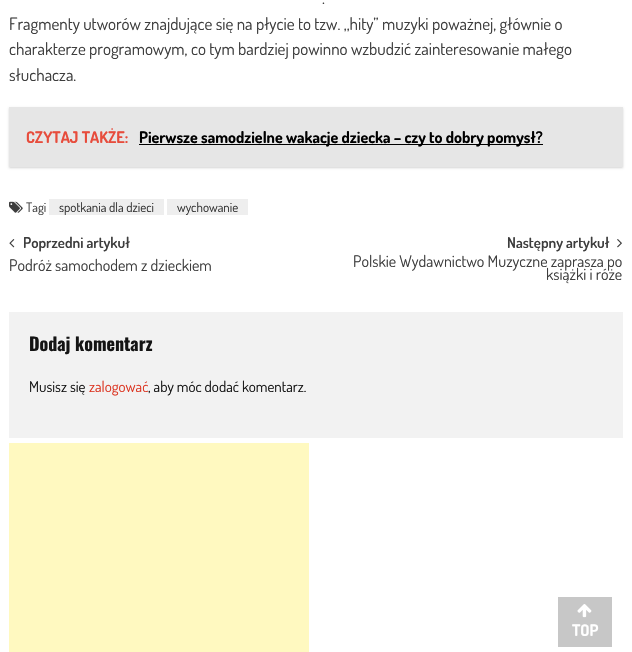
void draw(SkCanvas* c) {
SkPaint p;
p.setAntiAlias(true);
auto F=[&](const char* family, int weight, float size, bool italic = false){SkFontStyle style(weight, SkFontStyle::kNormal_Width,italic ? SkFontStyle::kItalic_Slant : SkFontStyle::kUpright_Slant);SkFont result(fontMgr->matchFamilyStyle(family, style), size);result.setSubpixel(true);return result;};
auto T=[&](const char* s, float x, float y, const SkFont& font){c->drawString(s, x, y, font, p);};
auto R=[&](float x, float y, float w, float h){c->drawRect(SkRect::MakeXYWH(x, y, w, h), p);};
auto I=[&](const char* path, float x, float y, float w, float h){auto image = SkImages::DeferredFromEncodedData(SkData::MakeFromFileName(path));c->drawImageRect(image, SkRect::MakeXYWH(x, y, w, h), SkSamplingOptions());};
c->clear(0xffffffff);
auto f1 = F("Dosis",400,17);
p.setColor(0xff3d3d3d);
T(".",322,4,f1);
T("Fragmenty utworów znajdujące się na płycie to tzw. ,,hity” muzyki poważnej, głównie o",9,30,f1);
T("charakterze programowym, co tym bardziej powinno wzbudzić zainteresowanie małego",9,55,f1);
T("słuchacza.",9,81,f1);
p.setColor(0x2b000000);
p.setMaskFilter(SkMaskFilter::MakeBlur(kNormal_SkBlurStyle, 1));
c->drawRect(SkRect::MakeXYWH(9,108,614,60),p);
p.setMaskFilter(nullptr);
p.setColor(0xffe6e6e6);
R(9,107,614,60);
auto f2 = F("Dosis",700,16);
p.setColor(0xffe74c3c);
T("CZYTAJ TAKŻE:",26,143,f2);
p.setColor(0xff000000);
R(139,144,404,1);
T("Pierwsze samodzielne wakacje dziecka – czy to dobry pomysł?",139,143,f2);
I("1.png",9,201,14,12);
auto f3 = F("Dosis",400,13);
p.setColor(0xff3d3d3d);
T("Tagi",26,212,f3);
p.setColor(0xffeeeeee);
R(49,199,115,16);
p.setColor(0xff333333);
T("spotkania dla dzieci",59,212,f3);
p.setColor(0xffeeeeee);
R(167,199,81,16);
p.setColor(0xff333333);
T("wychowanie",177,212,f3);
I("2.png",9,239,6,9);
auto f4 = F("Dosis",600,15);
p.setColor(0xff3d3d3d);
T("Poprzedni artykuł",23,248,f4);
auto f5 = F("Dosis",400,16);
T("Podróż samochodem z dzieckiem",9,271,f5);
T("Następny artykuł",507,248,f4);
I("3.png",617,239,5,9);
T("Polskie Wydawnictwo Muzyczne zaprasza po",353,267,f5);
T("książki i róże",546,280,f5);
p.setColor(0xfff2f2f2);
R(9,312,614,126);
auto f6 = F("Oswald",700,18);
p.setColor(0xff141414);
T("Dodaj komentarz",29,351,f6);
auto f7 = F("Dosis",400,15);
T("Musisz się",29,392,f7);
p.setColor(0xffdc3522);
T("zalogować",89,392,f7);
p.setColor(0xff141414);
T(", aby móc dodać komentarz.",148,392,f7);
p.setColor(0xfffff9c0);
R(9,443,300,209);
p.setColor(0xffc7c7c7);
R(558,597,54,50);
I("4.png",577,604,15,14);
p.setColor(0xffffffff);
T("TOP",572,636,f2);
}
